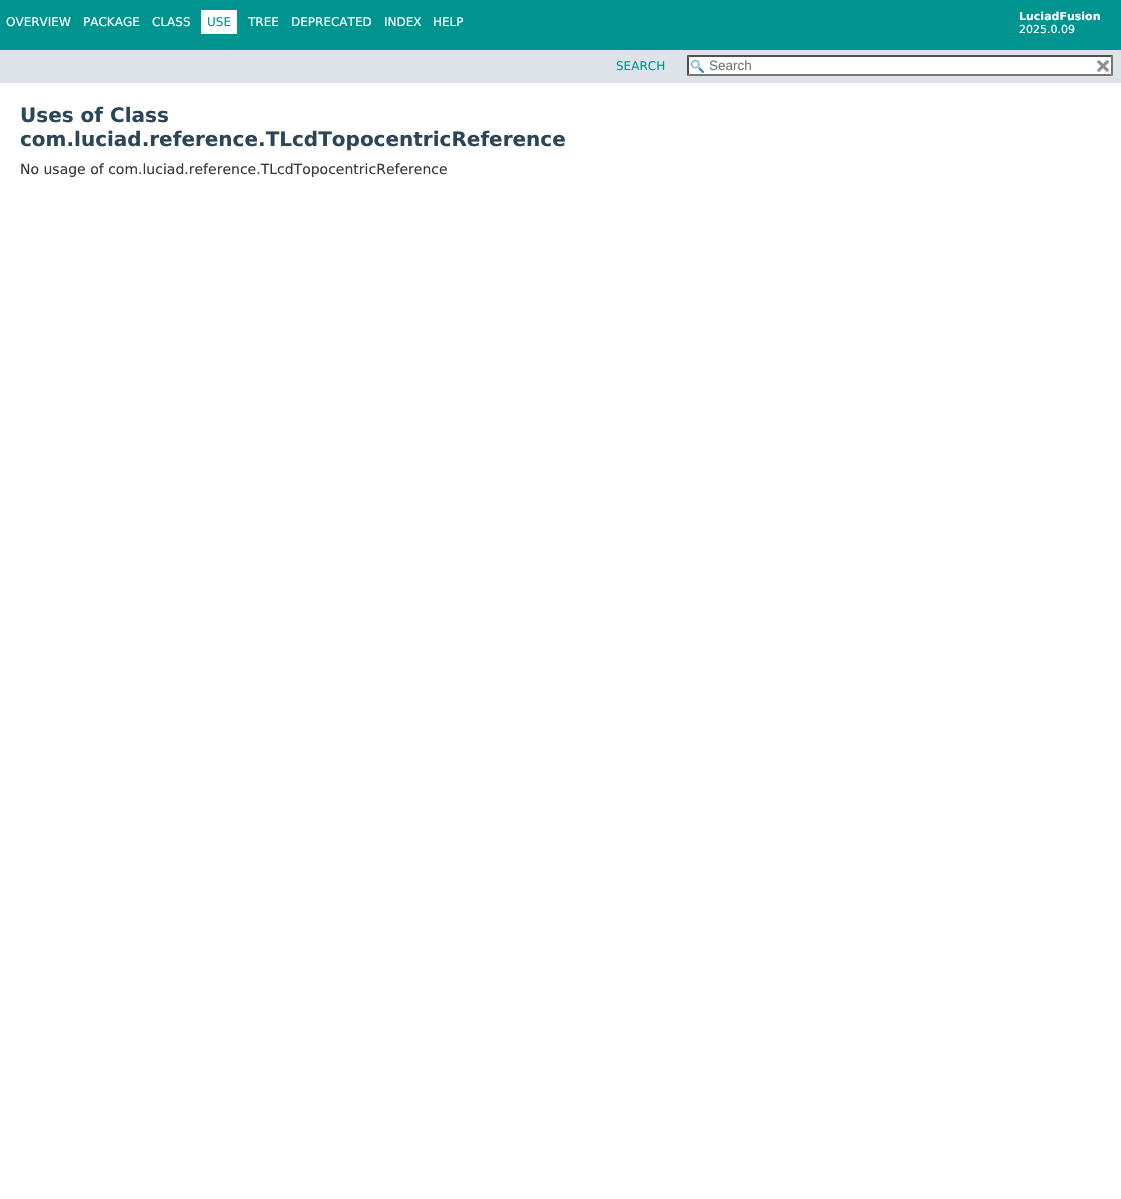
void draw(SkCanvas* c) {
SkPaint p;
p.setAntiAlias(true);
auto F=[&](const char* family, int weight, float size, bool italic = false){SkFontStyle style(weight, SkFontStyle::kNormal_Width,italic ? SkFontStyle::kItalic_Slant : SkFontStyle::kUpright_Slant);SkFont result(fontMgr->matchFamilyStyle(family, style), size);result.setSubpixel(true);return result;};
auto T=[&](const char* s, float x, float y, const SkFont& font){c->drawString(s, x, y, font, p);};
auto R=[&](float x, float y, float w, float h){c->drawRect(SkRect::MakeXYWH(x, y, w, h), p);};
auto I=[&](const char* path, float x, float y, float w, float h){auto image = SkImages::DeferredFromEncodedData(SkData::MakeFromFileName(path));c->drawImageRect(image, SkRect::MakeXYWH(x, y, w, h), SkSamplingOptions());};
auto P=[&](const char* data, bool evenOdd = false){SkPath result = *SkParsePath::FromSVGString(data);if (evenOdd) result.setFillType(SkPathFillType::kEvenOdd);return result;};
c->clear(0xffffffff);
p.setColor(0xff009490);
R(0,0,1121,50);
auto f1 = F("DejaVu Sans",400,12);
p.setColor(0xffffffff);
T("OVERVIEW",6,26,f1);
T("PACKAGE",83,26,f1);
T("CLASS",152,26,f1);
R(201,10,36,24);
p.setColor(0xff009490);
T("USE",207,26,f1);
p.setColor(0xffffffff);
T("TREE",248,26,f1);
T("DEPRECATED",291,26,f1);
T("INDEX",384,26,f1);
T("HELP",433,26,f1);
auto f2 = F("DejaVu Sans",700,11);
T("LuciadFusion",1019,20,f2);
auto f3 = F("DejaVu Sans",400,11);
T("2025.0.09",1019,33,f3);
p.setColor(0xffdee3e9);
R(0,50,1121,33);
p.setColor(0xff009490);
T("SEARCH",616,70,f1);
p.setColor(0xffffffff);
R(687,55,426,21);
I("1.png",691,60,13,13);
p.setColor(0xff4f4f4f);
c->drawPath(P("M687 55h426l-2 2h-422z"),p);
p.setColor(0xff767676);
c->drawPath(P("M1113 55v21l-2-2v-17z"),p);
c->drawPath(P("M1113 76h-426l2-2h422z"),p);
p.setColor(0xff4f4f4f);
c->drawPath(P("M687 76v-21l2 2v17z"),p);
auto f4 = F("Liberation Sans",400,13.5);
p.setColor(0xff757575);
T("Search",709,70,f4);
I("2.png",1096,60,14,12);
auto f5 = F("DejaVu Sans",700,20);
p.setColor(0xff2c4557);
T("Uses of Class",20,122,f5);
T("com.luciad.reference.TLcdTopocentricReference",20,146,f5);
auto f6 = F("DejaVu Sans",400,14);
p.setColor(0xff353833);
T("No usage of com.luciad.reference.TLcdTopocentricReference",20,174,f6);
}
